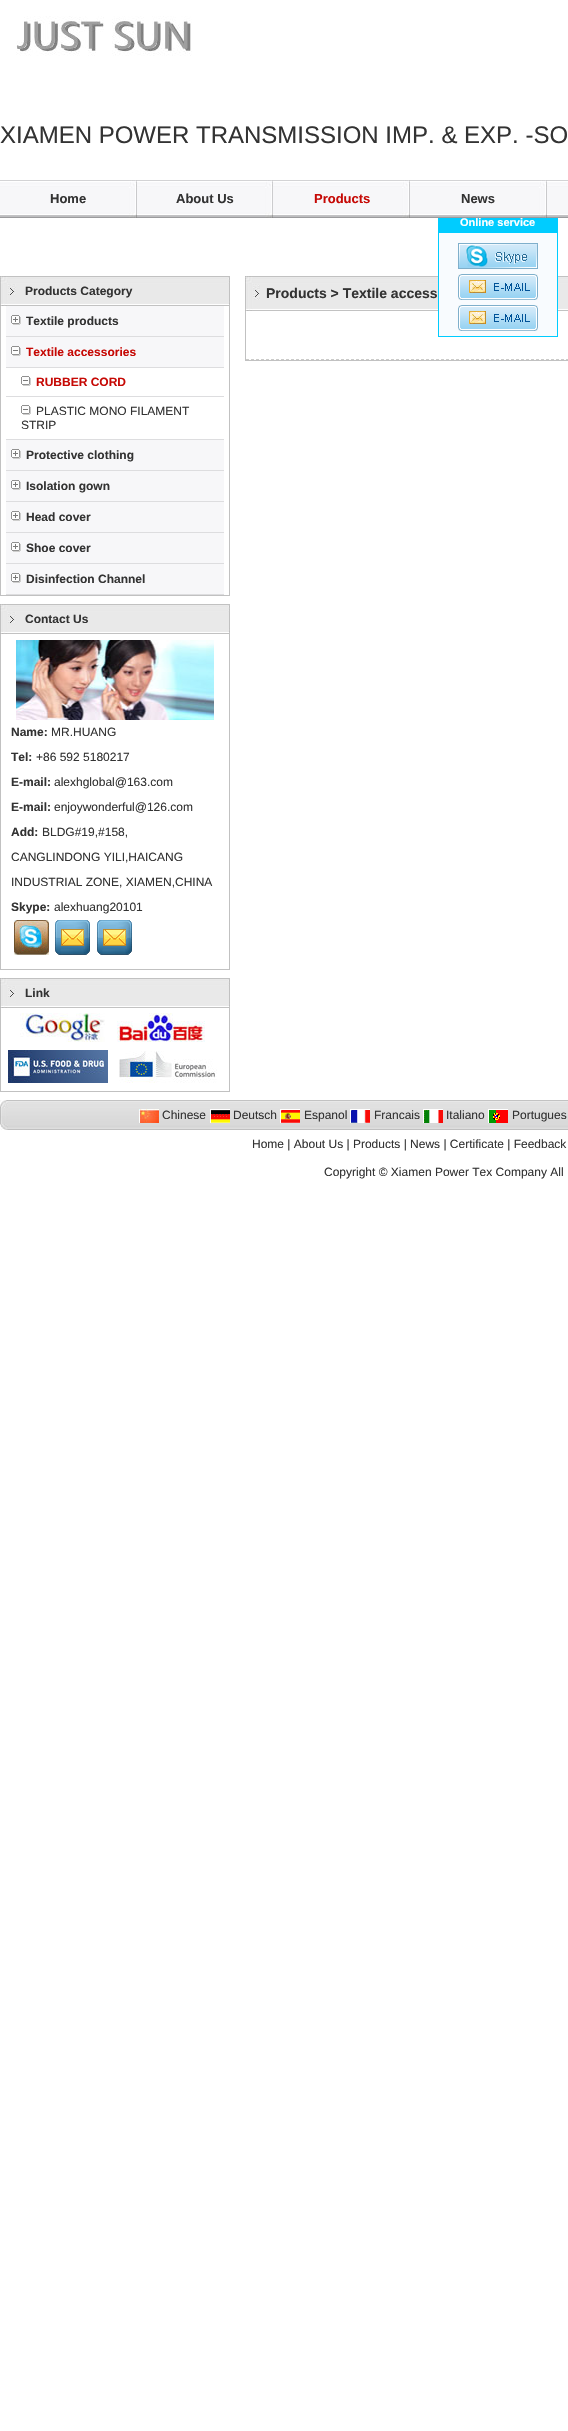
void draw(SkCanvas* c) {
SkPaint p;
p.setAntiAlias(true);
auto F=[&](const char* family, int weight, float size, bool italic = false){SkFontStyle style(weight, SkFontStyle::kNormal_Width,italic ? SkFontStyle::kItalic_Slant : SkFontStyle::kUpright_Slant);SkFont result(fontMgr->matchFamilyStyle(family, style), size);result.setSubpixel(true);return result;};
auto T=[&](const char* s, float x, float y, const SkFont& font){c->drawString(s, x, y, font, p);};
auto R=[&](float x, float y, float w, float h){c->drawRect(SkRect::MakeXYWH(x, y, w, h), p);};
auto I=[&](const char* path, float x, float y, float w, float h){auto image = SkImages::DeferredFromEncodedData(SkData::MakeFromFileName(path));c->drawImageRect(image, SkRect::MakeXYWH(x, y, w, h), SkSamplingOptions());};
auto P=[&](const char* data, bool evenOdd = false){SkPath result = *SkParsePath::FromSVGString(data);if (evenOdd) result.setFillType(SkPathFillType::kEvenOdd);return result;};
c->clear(0xffffffff);
I("1.png",16,16,176,40);
auto f1 = F("Liberation Sans",400,24);
p.setColor(0xff333333);
T("XIAMEN POWER TRANSMISSION IMP. & EXP. -SO",0,143,f1);
I("2.png",0,180,568,38);
I("3.png",129,180,8,38);
auto f2 = F("Liberation Sans",700,13);
T("Home",50,203,f2);
I("4.png",265,180,8,38);
T("About Us",176,203,f2);
I("3.png",402,180,8,38);
p.setColor(0xffc60905);
T("Products",314,203,f2);
I("20.png",260,276,308,35);
p.setColor(0xfff8fbfe);
R(439,233,118,103);
p.setStroke(true);
p.setStrokeWidth(1);
p.setColor(0xff00ccff);
c->drawRect(SkRect::MakeXYWH(438.5,210.5,119,126),p);
I("5.png",438,180,109,38);
p.setStroke(false);
p.setColor(0xff333333);
T("News",461,203,f2);
I("6.png",547,210,11,8);
I("7.png",16,276,214,30);
I("8.png",0,276,16,30);
auto f3 = F("Liberation Sans",700,12);
T("Products Category",25,295,f3);
I("9.png",228,277,2,28);
p.setColor(0xffc1c1c1);
R(229,306,1,290);
R(0,595,230,1);
R(0,306,1,290);
p.setColor(0xfff7f7f9);
R(6,306,218,30);
p.setColor(0xffdddddf);
R(6,336,218,1);
I("10.png",11,315,10,10);
p.setColor(0xff333333);
T("Textile products",26,325,f3);
p.setColor(0xfff7f7f9);
R(6,337,218,30);
p.setColor(0xffdddddf);
R(6,367,218,1);
I("11.png",11,346,10,10);
p.setColor(0xffc60905);
T("Textile accessories",26,356,f3);
p.setColor(0xffdddddf);
R(6,396,218,1);
I("12.png",21,376,10,10);
p.setColor(0xffc60905);
T("RUBBER CORD",36,386,f3);
p.setColor(0xffdddddf);
R(6,439,218,1);
I("12.png",21,405,10,10);
auto f4 = F("Liberation Sans",400,12);
p.setColor(0xff333333);
T("PLASTIC MONO FILAMENT",36,415,f4);
T("STRIP",21,429,f4);
p.setColor(0xfff7f7f9);
R(6,440,218,30);
p.setColor(0xffdddddf);
R(6,470,218,1);
I("10.png",11,449,10,10);
p.setColor(0xff333333);
T("Protective clothing",26,459,f3);
p.setColor(0xfff7f7f9);
R(6,471,218,30);
p.setColor(0xffdddddf);
R(6,501,218,1);
I("10.png",11,480,10,10);
p.setColor(0xff333333);
T("Isolation gown",26,490,f3);
p.setColor(0xfff7f7f9);
R(6,502,218,30);
p.setColor(0xffdddddf);
R(6,532,218,1);
I("10.png",11,511,10,10);
p.setColor(0xff333333);
T("Head cover",26,521,f3);
p.setColor(0xfff7f7f9);
R(6,533,218,30);
p.setColor(0xffdddddf);
R(6,563,218,1);
I("10.png",11,542,10,10);
p.setColor(0xff333333);
T("Shoe cover",26,552,f3);
p.setColor(0xfff7f7f9);
R(6,564,218,30);
p.setColor(0xffdddddf);
R(6,594,218,1);
I("10.png",11,573,10,10);
p.setColor(0xff333333);
T("Disinfection Channel",26,583,f3);
I("7.png",16,604,214,30);
I("8.png",0,604,16,30);
T("Contact Us",25,623,f3);
I("9.png",228,605,2,28);
p.setColor(0xffc1c1c1);
R(229,634,1,336);
R(0,969,230,1);
R(0,634,1,336);
I("13.png",16,640,198,80);
p.setColor(0xff333333);
T("Name:",11,736,f3);
T("MR.HUANG",51,736,f4);
T("Tel:",11,761,f3);
T("+86 592 5180217",36,761,f4);
T("E-mail:",11,786,f3);
T("alexhglobal@163.com",54,786,f4);
T("E-mail:",11,811,f3);
T("enjoywonderful@126.com",54,811,f4);
T("Add:",11,836,f3);
T("BLDG#19,#158,",42,836,f4);
T("CANGLINDONG YILI,HAICANG",11,861,f4);
T("INDUSTRIAL ZONE, XIAMEN,CHINA",11,886,f4);
T("Skype:",11,911,f3);
T("alexhuang20101",54,911,f4);
I("14.png",14,920,35,35);
I("15.png",55,920,35,35);
I("15.png",97,920,35,35);
I("7.png",16,978,214,30);
I("8.png",0,978,16,30);
T("Link",25,997,f3);
I("9.png",228,979,2,28);
p.setColor(0xffc1c1c1);
R(229,1008,1,84);
R(0,1091,230,1);
R(0,1008,1,84);
I("16.png",20,1013,85,29);
I("17.png",117,1013,88,29);
I("18.png",8,1050,100,33);
I("19.png",119,1051,98,32);
I("21.png",245,276,15,35);
auto f5 = F("Liberation Sans",700,14);
p.setColor(0xff333333);
T("Products > Textile access",266,298,f5);
p.setColor(0xffc1c1c1);
R(245,360,323,1);
R(245,311,1,50);
p.setStroke(true);
p.setColor(0xffcbcbc9);
p.setPathEffect(SkDashPathEffect::Make({{3,2}}, 0));
c->drawPath(P("M246 359.5h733"),p);
p.setPathEffect(nullptr);
p.setStroke(false);
p.setColor(0xff00ccff);
R(439,218,118,15);
auto f6 = F("Liberation Sans",700,11);
p.setColor(0xffffffff);
T("Online service",460,226,f6);
I("22.png",458,243,80,26);
I("23.png",458,274,80,26);
I("23.png",458,305,80,26);
I("24.png",0,1100,568,30);
I("25.png",139,1109,20,14);
p.setColor(0xff333333);
T("Chinese",162,1119,f4);
I("26.png",210,1109,20,14);
T("Deutsch",233,1119,f4);
I("27.png",280,1109,20,14);
T("Espanol",304,1119,f4);
I("28.png",350,1109,20,14);
T("Francais",374,1119,f4);
I("29.png",423,1109,20,14);
T("Italiano",446,1119,f4);
I("30.png",488,1109,20,14);
T("Portugues",512,1119,f4);
T("Home | About Us | Products | News | Certificate | Feedback",252,1148,f4);
T("Copyright © Xiamen Power Tex Company All",324,1176,f4);
}
